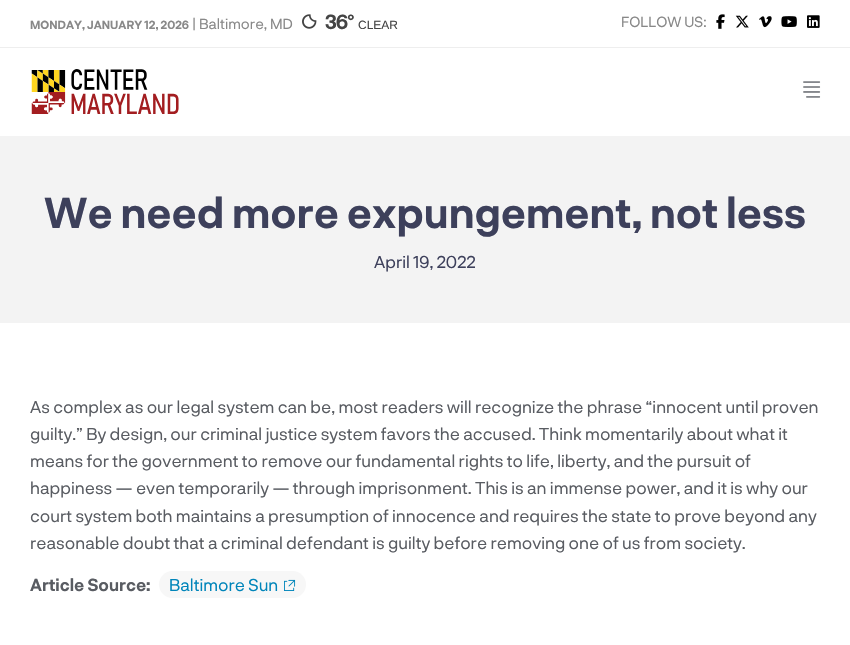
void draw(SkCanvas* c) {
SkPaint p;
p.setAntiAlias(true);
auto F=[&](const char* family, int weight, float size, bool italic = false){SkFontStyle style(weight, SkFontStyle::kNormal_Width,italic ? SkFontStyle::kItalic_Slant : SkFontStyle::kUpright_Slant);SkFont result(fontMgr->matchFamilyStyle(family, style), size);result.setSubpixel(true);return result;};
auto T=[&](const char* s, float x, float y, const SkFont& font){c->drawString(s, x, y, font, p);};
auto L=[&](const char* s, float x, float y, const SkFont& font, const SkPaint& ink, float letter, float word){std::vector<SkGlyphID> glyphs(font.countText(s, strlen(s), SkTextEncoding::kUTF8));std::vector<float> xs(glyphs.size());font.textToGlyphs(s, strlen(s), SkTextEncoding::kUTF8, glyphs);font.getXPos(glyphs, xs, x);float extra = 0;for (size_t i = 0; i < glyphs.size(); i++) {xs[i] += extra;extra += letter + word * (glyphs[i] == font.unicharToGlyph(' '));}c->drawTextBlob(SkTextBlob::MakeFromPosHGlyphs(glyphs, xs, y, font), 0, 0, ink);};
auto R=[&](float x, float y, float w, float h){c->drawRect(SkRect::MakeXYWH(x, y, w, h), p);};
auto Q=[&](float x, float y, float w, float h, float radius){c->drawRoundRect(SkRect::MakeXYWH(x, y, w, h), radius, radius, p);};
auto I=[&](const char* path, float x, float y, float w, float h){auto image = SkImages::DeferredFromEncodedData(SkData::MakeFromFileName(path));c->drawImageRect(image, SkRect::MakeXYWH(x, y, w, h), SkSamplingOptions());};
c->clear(0xffffffff);
p.setColor(0xffeeeeee);
R(0,47,850,1);
auto f1 = F("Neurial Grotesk",700,11.5);
p.setColor(0xff888888);
T("MONDAY, JANUARY 12, 2026",30,29,f1);
auto f2 = F("Neurial Grotesk",400,14.5);
T("| Baltimore, MD",192,29,f2);
I("1.png",302,14,15,15);
auto f3 = F("Neurial Grotesk",700,20);
p.setColor(0xff444444);
L("36°",325,29,f3,p,-1,0);
auto f4 = F("Liberation Sans",400,12);
T("CLEAR",358,29,f4);
p.setColor(0xff888888);
T("FOLLOW US:",621,27,f2);
I("2.png",716,14,9,15);
I("3.png",735,15,14,13);
I("4.png",759,16,13,12);
I("5.png",781,16,16,11);
I("6.png",807,15,13,13);
I("7.png",31,69,148,45);
I("8.png",803,81,18,17);
p.setColor(0xfff3f3f3);
R(0,136,850,187);
auto f5 = F("Neurial Grotesk",700,42);
p.setColor(0xff3d405b);
T("We need more expungement, not less",44,228,f5);
auto f6 = F("Neurial Grotesk",400,17);
T("April 19, 2022",374,268,f6);
p.setColor(0xff595c62);
T("As complex as our legal system can be, most readers will recognize the phrase “innocent until proven",30,413,f6);
T("guilty.” By design, our criminal justice system favors the accused. Think momentarily about what it",30,440,f6);
T("means for the government to remove our fundamental rights to life, liberty, and the pursuit of",30,467,f6);
T("happiness — even temporarily — through imprisonment. This is an immense power, and it is why our",30,494,f6);
T("court system both maintains a presumption of innocence and requires the state to prove beyond any",30,522,f6);
T("reasonable doubt that a criminal defendant is guilty before removing one of us from society.",30,549,f6);
auto f7 = F("Neurial Grotesk",700,17);
T("Article Source:",30,591,f7);
p.setColor(0xfff7f7f7);
Q(159,571,147,27,13.5);
p.setColor(0xff0085ba);
T("Baltimore Sun",169,591,f6);
I("9.png",284,579,12,12);
}
